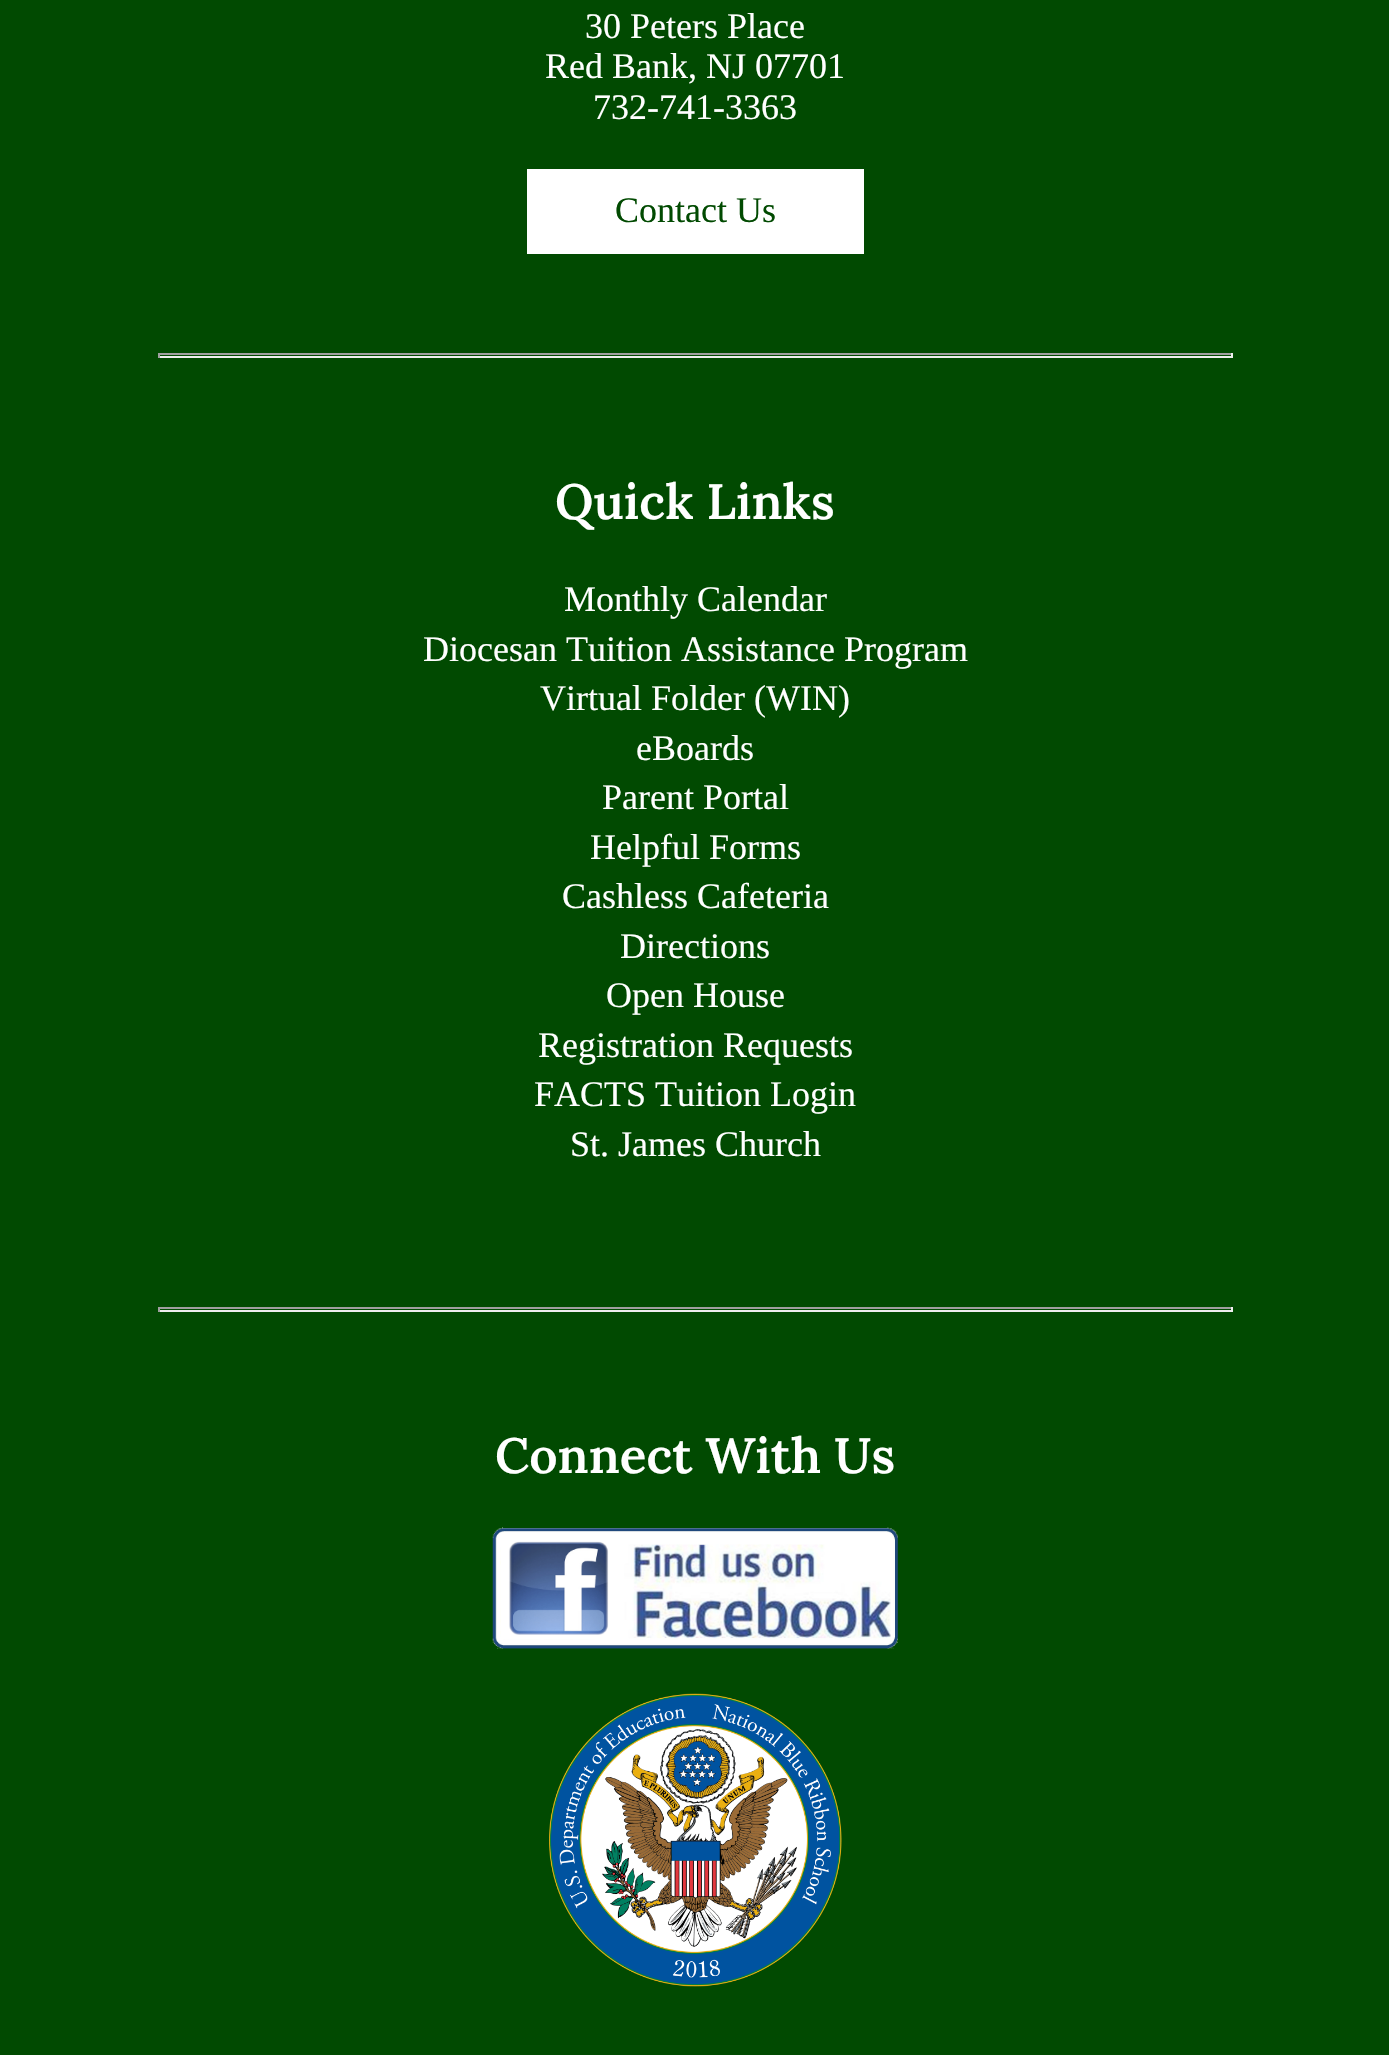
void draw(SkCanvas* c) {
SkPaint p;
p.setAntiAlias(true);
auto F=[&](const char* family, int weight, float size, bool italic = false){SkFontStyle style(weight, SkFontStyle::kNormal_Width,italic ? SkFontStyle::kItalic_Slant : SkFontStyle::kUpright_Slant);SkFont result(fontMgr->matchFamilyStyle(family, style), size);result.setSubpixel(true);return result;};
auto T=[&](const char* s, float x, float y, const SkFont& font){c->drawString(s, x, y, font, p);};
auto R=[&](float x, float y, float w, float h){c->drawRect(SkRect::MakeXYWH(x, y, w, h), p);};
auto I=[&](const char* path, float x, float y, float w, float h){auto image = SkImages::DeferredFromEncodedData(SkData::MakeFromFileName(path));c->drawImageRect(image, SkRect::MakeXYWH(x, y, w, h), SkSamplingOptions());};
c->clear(0xff014a01);
auto f1 = F("Liberation Serif",400,36);
p.setColor(0xffffffff);
T("30 Peters Place",585,38,f1);
T("Red Bank, NJ 07701",545,78,f1);
T("732-741-3363",593,119,f1);
R(527,169,337,85);
p.setColor(0xff014a01);
T("Contact Us",615,222,f1);
p.setColor(0xff9f9f9f);
R(158,353,1075,2);
p.setColor(0xffeeeeee);
R(1231,353,2,5);
R(158,356,1075,2);
p.setColor(0xff9f9f9f);
R(158,353,2,5);
auto f2 = F("Lora",600,49.5);
p.setColor(0xffffffff);
T("Quick Links",555,519,f2);
T("Monthly Calendar",564,611,f1);
T("Diocesan Tuition Assistance Program",423,661,f1);
T("Virtual Folder (WIN)",540,710,f1);
T("eBoards",636,760,f1);
T("Parent Portal",602,809,f1);
T("Helpful Forms",590,859,f1);
T("Cashless Cafeteria",562,908,f1);
T("Directions",620,958,f1);
T("Open House",606,1007,f1);
T("Registration Requests",538,1057,f1);
T("FACTS Tuition Login",534,1106,f1);
T("St. James Church",570,1156,f1);
p.setColor(0xff9f9f9f);
R(158,1307,1075,2);
p.setColor(0xffeeeeee);
R(1231,1307,2,5);
R(158,1310,1075,2);
p.setColor(0xff9f9f9f);
R(158,1307,2,5);
p.setColor(0xffffffff);
T("Connect With Us",495,1473,f2);
I("1.png",492,1527,406,122);
I("2.png",549,1693,293,294);
}
